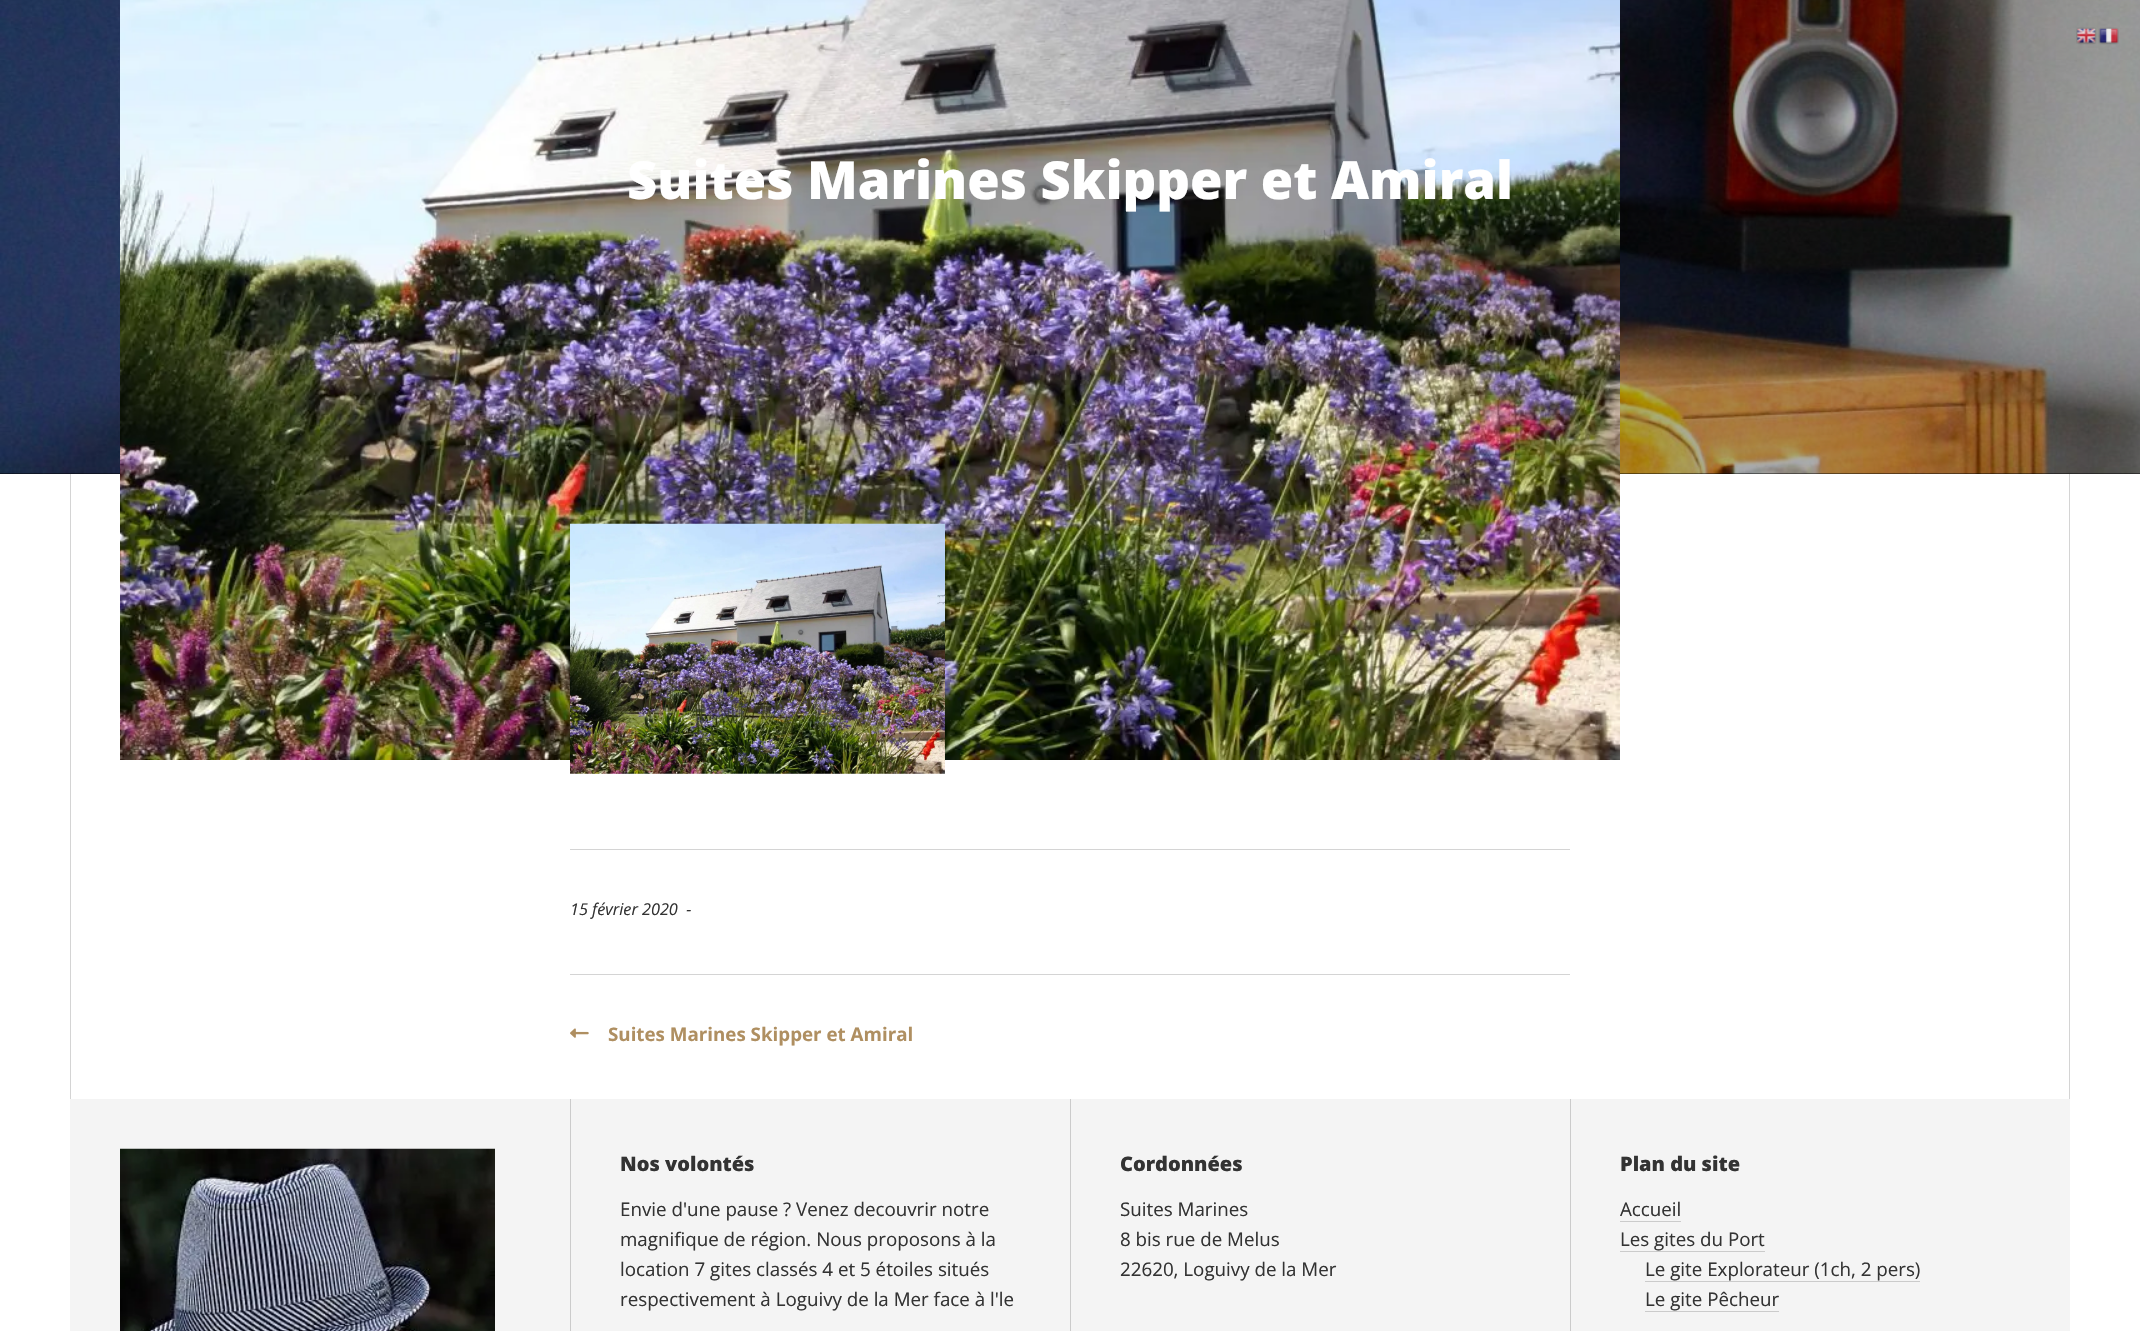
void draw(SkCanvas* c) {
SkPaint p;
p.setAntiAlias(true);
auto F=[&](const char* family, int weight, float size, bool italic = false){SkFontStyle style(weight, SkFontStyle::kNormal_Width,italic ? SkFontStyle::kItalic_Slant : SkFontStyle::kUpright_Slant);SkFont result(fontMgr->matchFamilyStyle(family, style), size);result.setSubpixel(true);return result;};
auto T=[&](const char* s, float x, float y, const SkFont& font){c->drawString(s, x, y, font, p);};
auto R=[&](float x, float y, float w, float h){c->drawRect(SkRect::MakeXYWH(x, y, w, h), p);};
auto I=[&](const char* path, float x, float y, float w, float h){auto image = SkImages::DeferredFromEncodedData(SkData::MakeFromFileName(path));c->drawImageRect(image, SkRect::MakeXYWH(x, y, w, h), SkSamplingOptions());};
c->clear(0xffffffff);
p.setColor(0xff000000);
R(0,473,2140,1);
I("3.png",0,0,2140,474);
I("1.png",2076,27,21,18);
I("2.png",2098,27,21,18);
I("4.png",120,0,1500,760);
auto f1 = F("Open Sans",800,52.5);
p.setColor(0xffffffff);
T("Suites Marines Skipper et Amiral",627,199,f1);
p.setColor(0xffd4d4d4);
R(2069,474,1,625);
R(70,474,1,625);
I("5.png",570,523,375,251);
R(570,849,1000,1);
auto f2 = F("Open Sans",400,16.25,true);
p.setColor(0xff333333);
T("15 février 2020  -",570,915,f2);
p.setColor(0xffd4d4d4);
R(570,974,1000,1);
I("6.png",570,1028,19,10);
auto f3 = F("Open Sans",700,18.75);
p.setColor(0xffaf8f61);
T("Suites Marines Skipper et Amiral",608,1041,f3);
p.setColor(0xfff4f4f4);
R(70,1099,2000,232);
I("7.png",120,1148,375,183);
p.setColor(0xffcbcbcb);
R(570,1099,1,232);
auto f4 = F("Open Sans",800,20);
p.setColor(0xff333333);
T("Nos volontés",620,1171,f4);
auto f5 = F("Open Sans",400,18.75);
T("Envie d'une pause ? Venez decouvrir notre",620,1216,f5);
T("magnifique de région. Nous proposons à la",620,1246,f5);
T("location 7 gites classés 4 et 5 étoiles situés",620,1276,f5);
T("respectivement à Loguivy de la Mer face à l'le",620,1306,f5);
p.setColor(0xffcbcbcb);
R(1070,1099,1,232);
p.setColor(0xff333333);
T("Cordonnées",1120,1171,f4);
T("Suites Marines",1120,1216,f5);
T("8 bis rue de Melus",1120,1246,f5);
T("22620, Loguivy de la Mer",1120,1276,f5);
p.setColor(0xffcbcbcb);
R(1570,1099,1,232);
p.setColor(0xff333333);
T("Plan du site",1620,1171,f4);
T("Accueil",1620,1216,f5);
p.setColor(0xffcbcbcb);
R(1620,1221,61,1);
p.setColor(0xff333333);
T("Les gites du Port",1620,1246,f5);
p.setColor(0xffcbcbcb);
R(1620,1251,145,1);
p.setColor(0xff333333);
T("Le gite Explorateur (1ch, 2 pers)",1645,1276,f5);
p.setColor(0xffcbcbcb);
R(1645,1281,275,1);
p.setColor(0xff333333);
T("Le gite Pêcheur",1645,1306,f5);
p.setColor(0xffcbcbcb);
R(1645,1311,134,1);
}
